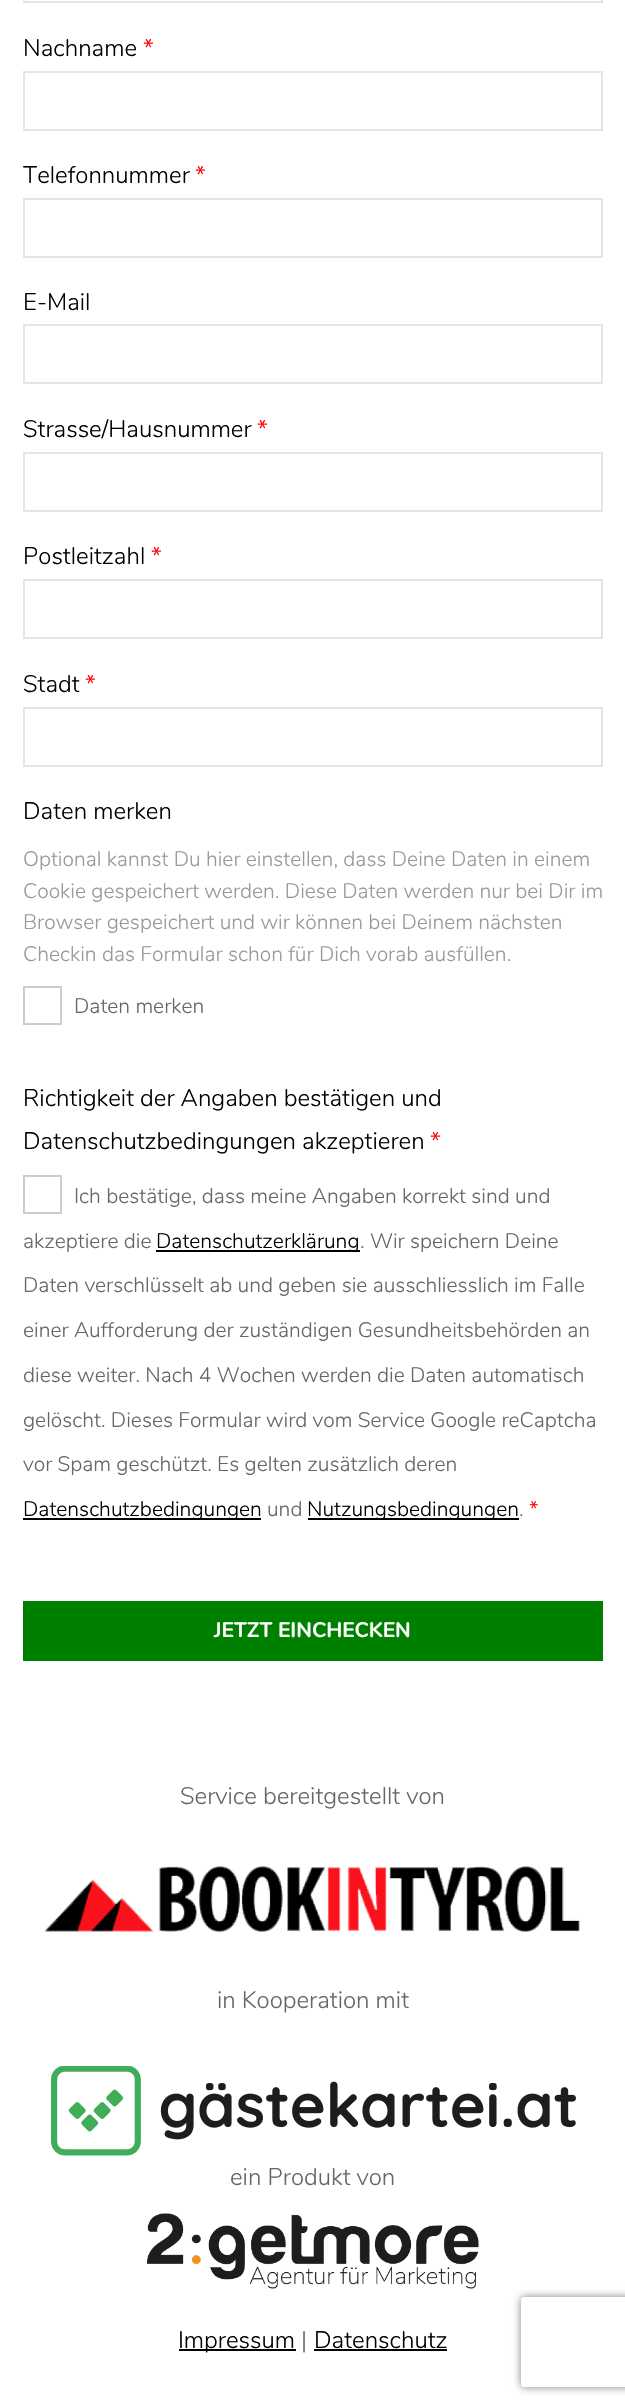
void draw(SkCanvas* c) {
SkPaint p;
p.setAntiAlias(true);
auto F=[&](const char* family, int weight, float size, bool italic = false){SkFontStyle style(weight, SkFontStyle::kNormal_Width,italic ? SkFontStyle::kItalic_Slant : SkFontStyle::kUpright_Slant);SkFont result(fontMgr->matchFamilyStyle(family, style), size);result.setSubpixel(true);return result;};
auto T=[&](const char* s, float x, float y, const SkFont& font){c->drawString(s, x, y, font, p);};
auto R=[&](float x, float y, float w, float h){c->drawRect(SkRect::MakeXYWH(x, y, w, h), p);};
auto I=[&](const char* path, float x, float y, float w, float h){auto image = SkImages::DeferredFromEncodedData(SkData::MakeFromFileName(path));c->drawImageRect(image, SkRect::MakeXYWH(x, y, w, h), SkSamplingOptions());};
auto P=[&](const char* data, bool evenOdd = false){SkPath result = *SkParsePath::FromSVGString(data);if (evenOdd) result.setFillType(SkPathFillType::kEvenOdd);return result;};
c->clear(0xffffffff);
p.setStroke(true);
p.setStrokeWidth(2);
p.setColor(0xffe5e5e5);
c->drawRect(SkRect::MakeXYWH(24,-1,578,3),p);
auto f1 = F("Nunito",300,24);
p.setStroke(false);
p.setColor(0xff000000);
T("Nachname",23,56,f1);
p.setColor(0xffff0000);
T("*",143,56,f1);
p.setStroke(true);
p.setColor(0xffe5e5e5);
c->drawRect(SkRect::MakeXYWH(24,72,578,58),p);
p.setStroke(false);
p.setColor(0xff000000);
T("Telefonnummer",23,183,f1);
p.setColor(0xffff0000);
T("*",195,183,f1);
p.setStroke(true);
p.setColor(0xffe5e5e5);
c->drawRect(SkRect::MakeXYWH(24,199,578,58),p);
p.setStroke(false);
p.setColor(0xff000000);
T("E-Mail",23,310,f1);
p.setStroke(true);
p.setColor(0xffe5e5e5);
c->drawRect(SkRect::MakeXYWH(24,325,578,58),p);
p.setStroke(false);
p.setColor(0xff000000);
T("Strasse/Hausnummer",23,437,f1);
p.setColor(0xffff0000);
T("*",257,437,f1);
p.setStroke(true);
p.setColor(0xffe5e5e5);
c->drawRect(SkRect::MakeXYWH(24,453,578,58),p);
p.setStroke(false);
p.setColor(0xff000000);
T("Postleitzahl",23,564,f1);
p.setColor(0xffff0000);
T("*",151,564,f1);
p.setStroke(true);
p.setColor(0xffe5e5e5);
c->drawRect(SkRect::MakeXYWH(24,580,578,58),p);
p.setStroke(false);
p.setColor(0xff000000);
T("Stadt",23,692,f1);
p.setColor(0xffff0000);
T("*",85,692,f1);
p.setStroke(true);
p.setColor(0xffe5e5e5);
c->drawRect(SkRect::MakeXYWH(24,708,578,58),p);
p.setStroke(false);
p.setColor(0xff000000);
T("Daten merken",23,819,f1);
auto f2 = F("Nunito",300,21);
p.setColor(0xff999999);
T("Optional kannst Du hier einstellen, dass Deine Daten in einem",23,866,f2);
T("Cookie gespeichert werden. Diese Daten werden nur bei Dir im",23,898,f2);
T("Browser gespeichert und wir können bei Deinem nächsten",23,929,f2);
T("Checkin das Formular schon für Dich vorab ausfüllen.",23,961,f2);
p.setStroke(true);
p.setColor(0xffcccccc);
c->drawRect(SkRect::MakeXYWH(24,987,37,37),p);
p.setStroke(false);
p.setColor(0xff666666);
T("Daten merken",74,1013,f2);
p.setColor(0xff000000);
T("Richtigkeit der Angaben bestätigen und",23,1106,f1);
T("Datenschutzbedingungen akzeptieren",23,1149,f1);
p.setColor(0xffff0000);
T("*",430,1149,f1);
p.setStroke(true);
p.setColor(0xffcccccc);
c->drawRect(SkRect::MakeXYWH(24,1176,37,37),p);
p.setStroke(false);
p.setColor(0xff666666);
T("Ich bestätige, dass meine Angaben korrekt sind und",74,1203,f2);
T("akzeptiere die",23,1248,f2);
p.setColor(0xff000000);
R(156,1250,204,2);
T("Datenschutzerklärung",156,1248,f2);
p.setColor(0xff666666);
T(". Wir speichern Deine",360,1248,f2);
T("Daten verschlüsselt ab und geben sie ausschliesslich im Falle",23,1292,f2);
T("einer Aufforderung der zuständigen Gesundheitsbehörden an",23,1337,f2);
T("diese weiter. Nach 4 Wochen werden die Daten automatisch",23,1382,f2);
T("gelöscht. Dieses Formular wird vom Service Google reCaptcha",23,1427,f2);
T("vor Spam geschützt. Es gelten zusätzlich deren",23,1471,f2);
p.setColor(0xff000000);
R(23,1518,238,2);
T("Datenschutzbedingungen",23,1516,f2);
p.setColor(0xff666666);
T("und",267,1516,f2);
p.setColor(0xff000000);
R(308,1518,211,2);
T("Nutzungsbedingungen",307,1516,f2);
p.setColor(0xffff0000);
T("*",529,1516,f2);
p.setColor(0xff666666);
T(".",519,1516,f2);
p.setColor(0xff008000);
R(23,1601,580,60);
auto f3 = F("Nunito",700,21);
p.setColor(0xffffffff);
T("JETZT EINCHECKEN",214,1637,f3);
c->save();
c->clipPath(P("M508 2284h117v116h-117zm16 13h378c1.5 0 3 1.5 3 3v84c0 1.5-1.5 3-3 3h-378c-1.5 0-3-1.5-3-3v-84c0-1.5 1.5-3 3-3z",true),true);
p.setColor(0xff808080);
p.setMaskFilter(SkMaskFilter::MakeBlur(kNormal_SkBlurStyle, 4));
c->drawRoundRect(SkRect::MakeXYWH(521,2297,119,90),3,3,p);
p.setMaskFilter(nullptr);
c->restore();
p.setColor(0xff666666);
T("Service bereitgestellt von",180,1804,f1);
I("1.png",45,1866,535,66);
T("in Kooperation mit",217,2008,f1);
I("2.png",51,2066,525,90);
T("ein Produkt von",230,2185,f1);
I("3.png",147,2213,332,76);
p.setColor(0xff000000);
R(179,2349,117,2);
T("Impressum",178,2348,f1);
p.setColor(0xff666666);
T("|",301,2348,f1);
p.setColor(0xff000000);
T("Datenschutz",314,2348,f1);
R(314,2349,133,2);
}
